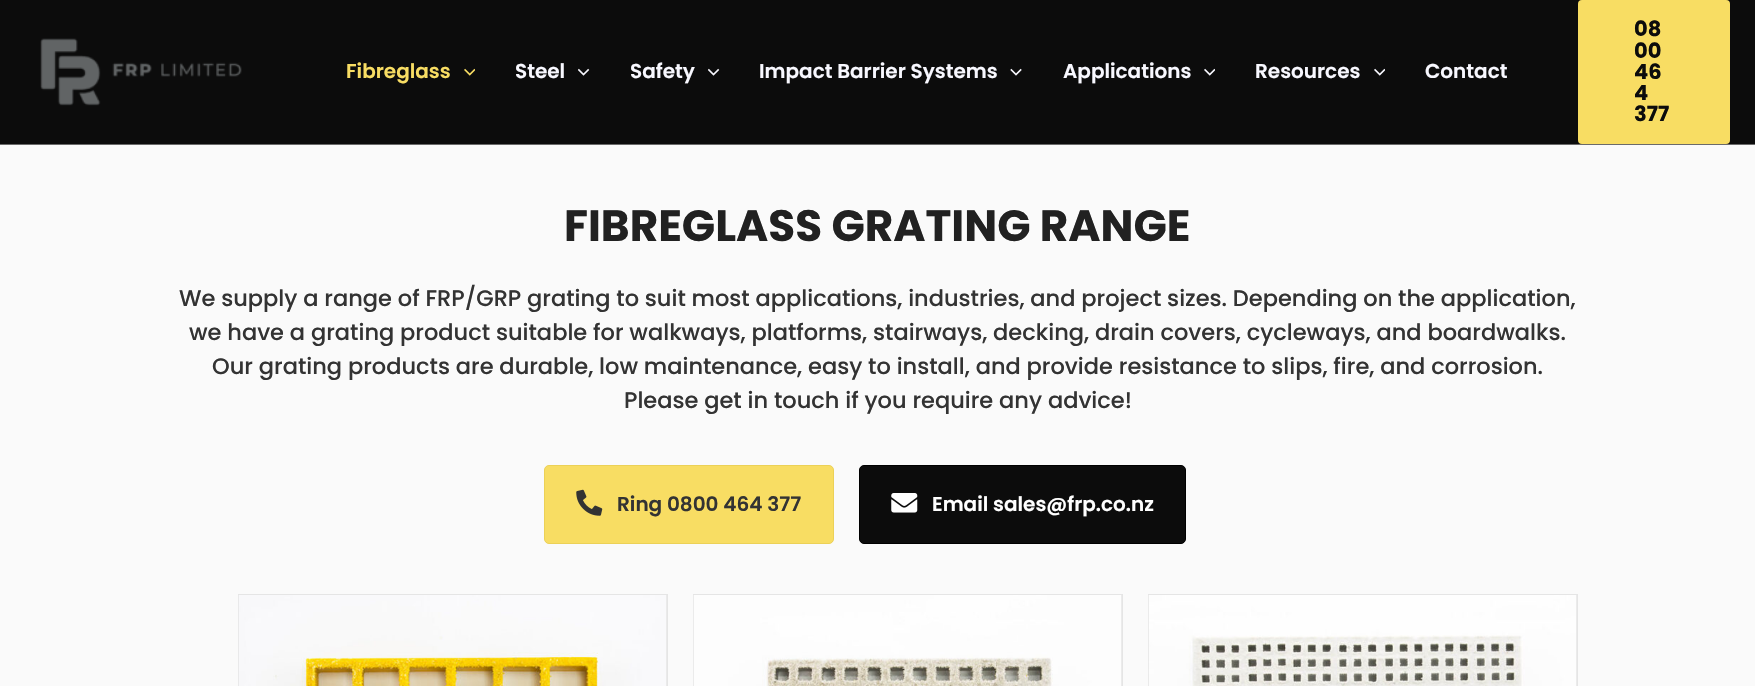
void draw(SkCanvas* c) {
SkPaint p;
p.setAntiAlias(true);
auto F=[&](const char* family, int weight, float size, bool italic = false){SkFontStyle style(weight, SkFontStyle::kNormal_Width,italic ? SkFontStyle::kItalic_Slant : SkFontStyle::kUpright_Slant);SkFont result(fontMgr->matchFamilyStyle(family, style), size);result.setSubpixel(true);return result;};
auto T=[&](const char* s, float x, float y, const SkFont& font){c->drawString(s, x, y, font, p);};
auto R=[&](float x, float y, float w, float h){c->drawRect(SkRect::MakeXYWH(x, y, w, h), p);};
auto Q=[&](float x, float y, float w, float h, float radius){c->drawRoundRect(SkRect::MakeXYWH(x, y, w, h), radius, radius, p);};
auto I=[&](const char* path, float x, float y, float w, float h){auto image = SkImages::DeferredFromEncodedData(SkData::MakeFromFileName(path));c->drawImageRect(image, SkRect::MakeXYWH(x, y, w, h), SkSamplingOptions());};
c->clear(0xfffafafa);
p.setColor(0xff0c0c0c);
R(0,0,1755,144);
p.setColor(0xff6a6a6a);
R(0,144,1755,1);
I("1.png",40,38,202,68);
auto f1 = F("Poppins",600,20);
p.setColor(0xfff8dd63);
T("Fibreglass",346,78,f1);
I("2.png",464,68,11,8);
p.setColor(0xfff8f8ff);
T("Steel",515,78,f1);
I("3.png",578,68,12,8);
T("Safety",630,78,f1);
I("3.png",708,68,12,8);
T("Impact Barrier Systems",759,78,f1);
I("4.png",1010,68,12,8);
T("Applications",1063,78,f1);
I("5.png",1204,68,11,8);
T("Resources",1255,78,f1);
I("5.png",1374,68,11,8);
T("Contact",1425,78,f1);
p.setColor(0xfff8dd63);
Q(1578,0,152,144,4);
auto f2 = F("Poppins",700,21);
p.setColor(0xff0c0c0c);
T("08",1634,36,f2);
T("00",1634,58,f2);
T("46",1634,79,f2);
T("4",1634,100,f2);
T("377",1634,121,f2);
auto f3 = F("Poppins",700,43.75);
p.setColor(0xff212121);
T("FIBREGLASS GRATING RANGE",564,241,f3);
auto f4 = F("Poppins",500,22.5);
p.setColor(0xff333333);
T("We supply a range of FRP/GRP grating to suit most applications, industries, and project sizes. Depending on the application,",179,306,f4);
T("we have a grating product suitable for walkways, platforms, stairways, decking, drain covers, cycleways, and boardwalks.",189,340,f4);
T("Our grating products are durable, low maintenance, easy to install, and provide resistance to slips, fire, and corrosion.",212,374,f4);
T("Please get in touch if you require any advice!",624,408,f4);
p.setColor(0xfff8dd63);
c->drawRoundRect(SkRect::MakeXYWH(544.5,465.5,289,78),4.5,4.5,p);
p.setStroke(true);
p.setStrokeWidth(1);
p.setColor(0xffecd157);
c->drawRoundRect(SkRect::MakeXYWH(544.5,465.5,289,78),4.5,4.5,p);
I("6.png",576,489,27,27);
p.setStroke(false);
p.setColor(0xff333333);
T("Ring 0800 464 377",617,511,f1);
p.setColor(0xff0c0c0c);
c->drawRoundRect(SkRect::MakeXYWH(859.5,465.5,326,78),4.5,4.5,p);
p.setStroke(true);
p.setColor(0xff000000);
c->drawRoundRect(SkRect::MakeXYWH(859.5,465.5,326,78),4.5,4.5,p);
I("7.png",891,493,27,20);
p.setStroke(false);
p.setColor(0xffffffff);
T("Email sales@frp.co.nz",932,511,f1);
p.setColor(0xffe5e5e5);
R(238,594,430,92);
I("8.png",238,595,429,91);
R(693,594,430,92);
I("9.png",693,595,429,91);
R(1148,594,430,92);
I("10.png",1148,595,429,91);
}
